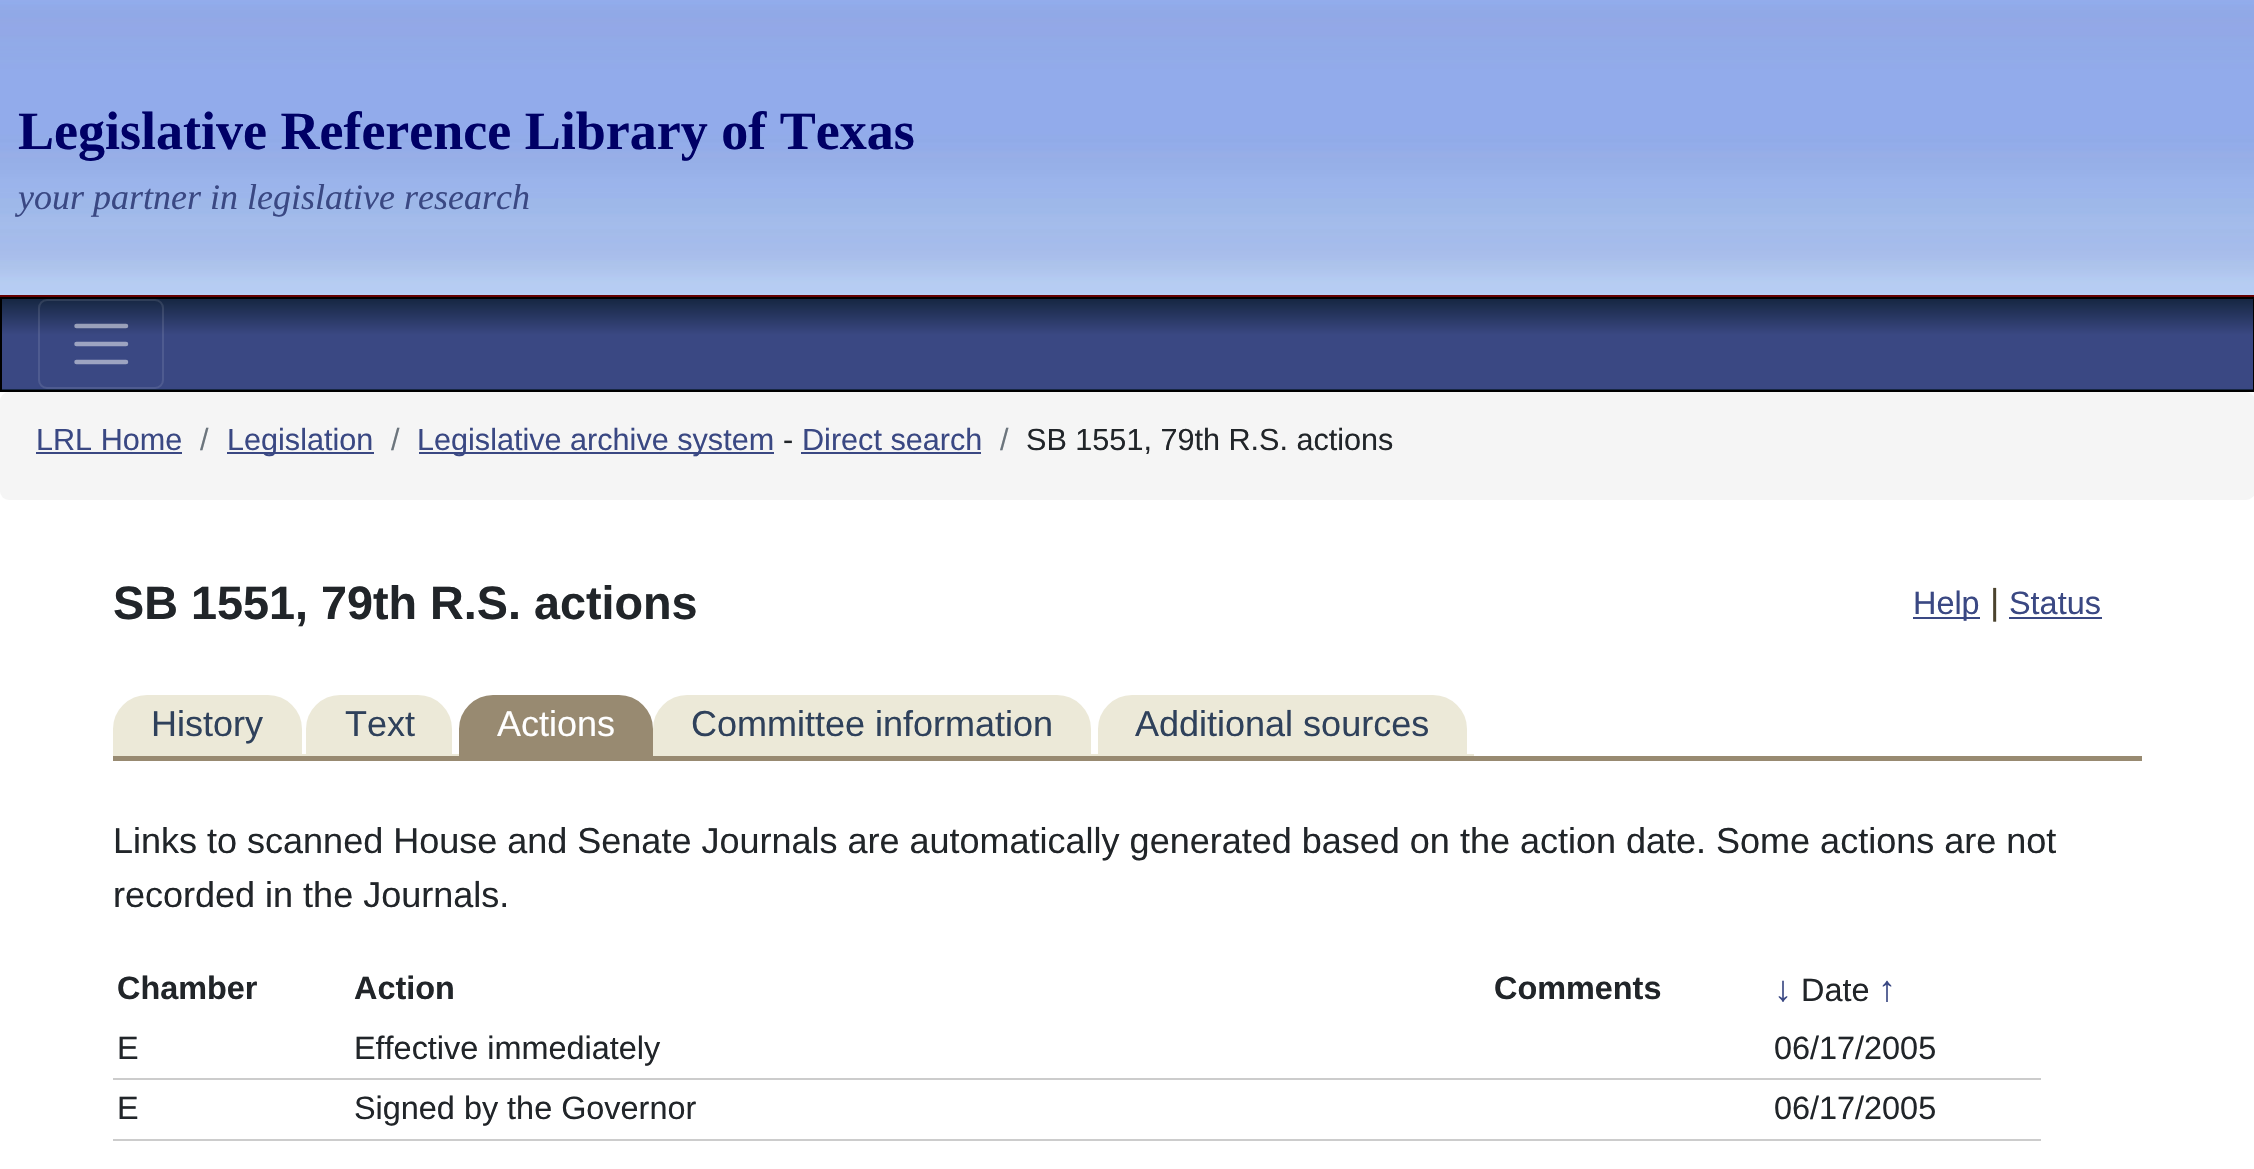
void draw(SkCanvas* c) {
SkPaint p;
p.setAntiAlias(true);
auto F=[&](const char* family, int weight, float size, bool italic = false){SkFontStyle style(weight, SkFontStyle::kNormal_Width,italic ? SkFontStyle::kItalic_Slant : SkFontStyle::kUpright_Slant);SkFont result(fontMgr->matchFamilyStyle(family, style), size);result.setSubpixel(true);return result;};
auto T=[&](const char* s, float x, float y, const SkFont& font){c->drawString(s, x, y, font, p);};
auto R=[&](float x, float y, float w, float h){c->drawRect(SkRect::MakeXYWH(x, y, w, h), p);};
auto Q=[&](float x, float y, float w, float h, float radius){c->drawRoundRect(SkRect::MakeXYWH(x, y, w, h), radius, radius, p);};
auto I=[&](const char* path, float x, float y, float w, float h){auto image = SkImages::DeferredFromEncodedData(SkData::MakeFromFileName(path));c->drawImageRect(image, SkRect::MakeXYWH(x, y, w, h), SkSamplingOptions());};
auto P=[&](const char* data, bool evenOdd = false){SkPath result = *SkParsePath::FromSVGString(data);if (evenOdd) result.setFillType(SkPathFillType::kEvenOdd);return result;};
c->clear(0xffffffff);
I("1.png",0,0,2254,295);
p.setColor(0xff660000);
R(0,295,2254,2);
auto f1 = F("Liberation Serif",700,54);
p.setColor(0xff000066);
T("Legislative Reference Library of Texas",18,149,f1);
auto f2 = F("Liberation Serif",400,36,true);
p.setColor(0xff3a4883);
T("your partner in legislative research",18,209,f2);
{
const SkColor colors[] = {0xff162742,0xff3a4883};
const float stops[] = {0,.4};
const SkPoint ends[] = {{1127,299}, {1127,389}};
p.setShader(SkGradientShader::MakeLinear(ends, colors, stops, 2, SkTileMode::kClamp));
p.setAlpha(255);
}
R(2,299,2251,90);
{
const SkColor colors[] = {0xff162742,0xff3a4883};
const float stops[] = {0,.4};
const SkPoint ends[] = {{1127,389}, {1127,479}};
p.setShader(SkGradientShader::MakeLinear(ends, colors, stops, 2, SkTileMode::kClamp));
p.setAlpha(255);
}
R(0,389,2254,1);
p.setStroke(true);
p.setStrokeWidth(2);
p.setShader(nullptr);
p.setColor(0xff000000);
c->drawRect(SkRect::MakeXYWH(1,298,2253,93),p);
p.setColor(0x1affffff);
c->drawRoundRect(SkRect::MakeXYWH(39,300,124,88),8,8,p);
p.setStrokeWidth(4.5);
p.setStrokeCap(SkPaint::kRound_Cap);
p.setColor(0x80ffffff);
c->drawPath(P("M76.5 326h49.5m-49.5 18h49.5m-49.5 18h49.5"),p);
p.setStroke(false);
p.setColor(0xfff5f5f5);
Q(0,392,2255,108,9);
auto f3 = F("Liberation Sans",400,30.6);
p.setColor(0xff3a4883);
T("LRL Home",36,450,f3);
R(36,452,146,2);
p.setColor(0xff6c757d);
T("/",200,450,f3);
p.setColor(0xff3a4883);
R(227,452,147,2);
T("Legislation",227,450,f3);
p.setColor(0xff6c757d);
T("/",391,450,f3);
p.setColor(0xff3a4883);
R(419,452,355,2);
T("Legislative archive system",417,450,f3);
p.setColor(0xff212529);
T("-",783,450,f3);
p.setColor(0xff3a4883);
T("Direct search",802,450,f3);
R(801,452,180,2);
p.setColor(0xff6c757d);
T("/",1000,450,f3);
p.setColor(0xff212529);
T("SB 1551, 79th R.S. actions",1026,450,f3);
auto f4 = F("Liberation Sans",700,46.75);
T("SB 1551, 79th R.S. actions",113,619,f4);
p.setColor(0xff3a4883);
R(1913,617,67,2);
auto f5 = F("Liberation Sans",400,32.4);
T("Help",1913,614,f5);
auto f6 = F("Liberation Sans",400,36);
p.setColor(0xff4b432e);
T("|",1990,614,f6);
p.setColor(0xff3a4883);
T("Status",2009,614,f5);
R(2009,617,93,2);
p.setColor(0xffece9d8);
R(113,754,346,2);
c->drawPath(P("M147 696h121c18 0 33 15 33 33v24h-187v-24c0-18 15-33 33-33z"),p);
p.setStroke(true);
p.setStrokeWidth(2);
p.setStrokeCap(SkPaint::kButt_Cap);
c->drawPath(P("M147 696h121c18 0 33 15 33 33v24h-187v-24c0-18 15-33 33-33z"),p);
p.setStroke(false);
p.setColor(0xff2f415b);
T("History",151,736,f6);
p.setColor(0xffece9d8);
c->drawPath(P("M340 696h78c18 0 33 15 33 33v24h-144v-24c0-18 15-33 33-33z"),p);
p.setStroke(true);
c->drawPath(P("M340 696h78c18 0 33 15 33 33v24h-144v-24c0-18 15-33 33-33z"),p);
p.setStroke(false);
p.setColor(0xff2f415b);
T("Text",345,736,f6);
p.setColor(0xff988a71);
R(459,754,194,2);
c->drawPath(P("M493 696h126c18 0 33 15 33 33v24h-192v-24c0-18 15-33 33-33z"),p);
p.setStroke(true);
c->drawPath(P("M493 696h126c18 0 33 15 33 33v24h-192v-24c0-18 15-33 33-33z"),p);
p.setStroke(false);
p.setColor(0xffffffff);
T("Actions",497,736,f6);
p.setColor(0xffece9d8);
R(653,754,821,2);
c->drawPath(P("M687 696h370c18 0 33 15 33 33v24h-436v-24c0-18 15-33 33-33z"),p);
p.setStroke(true);
c->drawPath(P("M687 696h370c18 0 33 15 33 33v24h-436v-24c0-18 15-33 33-33z"),p);
p.setStroke(false);
p.setColor(0xff2f415b);
T("Committee information",691,736,f6);
p.setColor(0xffece9d8);
c->drawPath(P("M1132 696h301c18 0 33 15 33 33v24h-367v-24c0-18 15-33 33-33z"),p);
p.setStroke(true);
c->drawPath(P("M1132 696h301c18 0 33 15 33 33v24h-367v-24c0-18 15-33 33-33z"),p);
p.setStroke(false);
p.setColor(0xff2f415b);
T("Additional sources",1135,736,f6);
p.setColor(0xff988a71);
R(113,756,2029,5);
p.setColor(0xff212529);
T("Links to scanned House and Senate Journals are automatically generated based on the action date. Some actions are not",113,853,f6);
T("recorded in the Journals.",113,907,f6);
auto f7 = F("Liberation Sans",700,32.4);
T("Chamber",117,999,f7);
T("Action",354,999,f7);
T("Comments",1494,999,f7);
auto f8 = F("Liberation Sans",700,36);
p.setColor(0xff3a4883);
T("↓",1774,1001,f8);
p.setColor(0xff212529);
T("Date",1801,1001,f5);
p.setColor(0xff3a4883);
T("↑",1878,1001,f8);
p.setColor(0xff212529);
T("E",117,1059,f5);
T("Effective immediately",354,1059,f5);
p.setColor(0xffcccccc);
R(113,1078,1928,2);
p.setColor(0xff212529);
T("06/17/2005",1774,1059,f5);
T("E",117,1119,f5);
T("Signed by the Governor",354,1119,f5);
p.setColor(0xffcccccc);
R(113,1139,1928,2);
p.setColor(0xff212529);
T("06/17/2005",1774,1119,f5);
}
